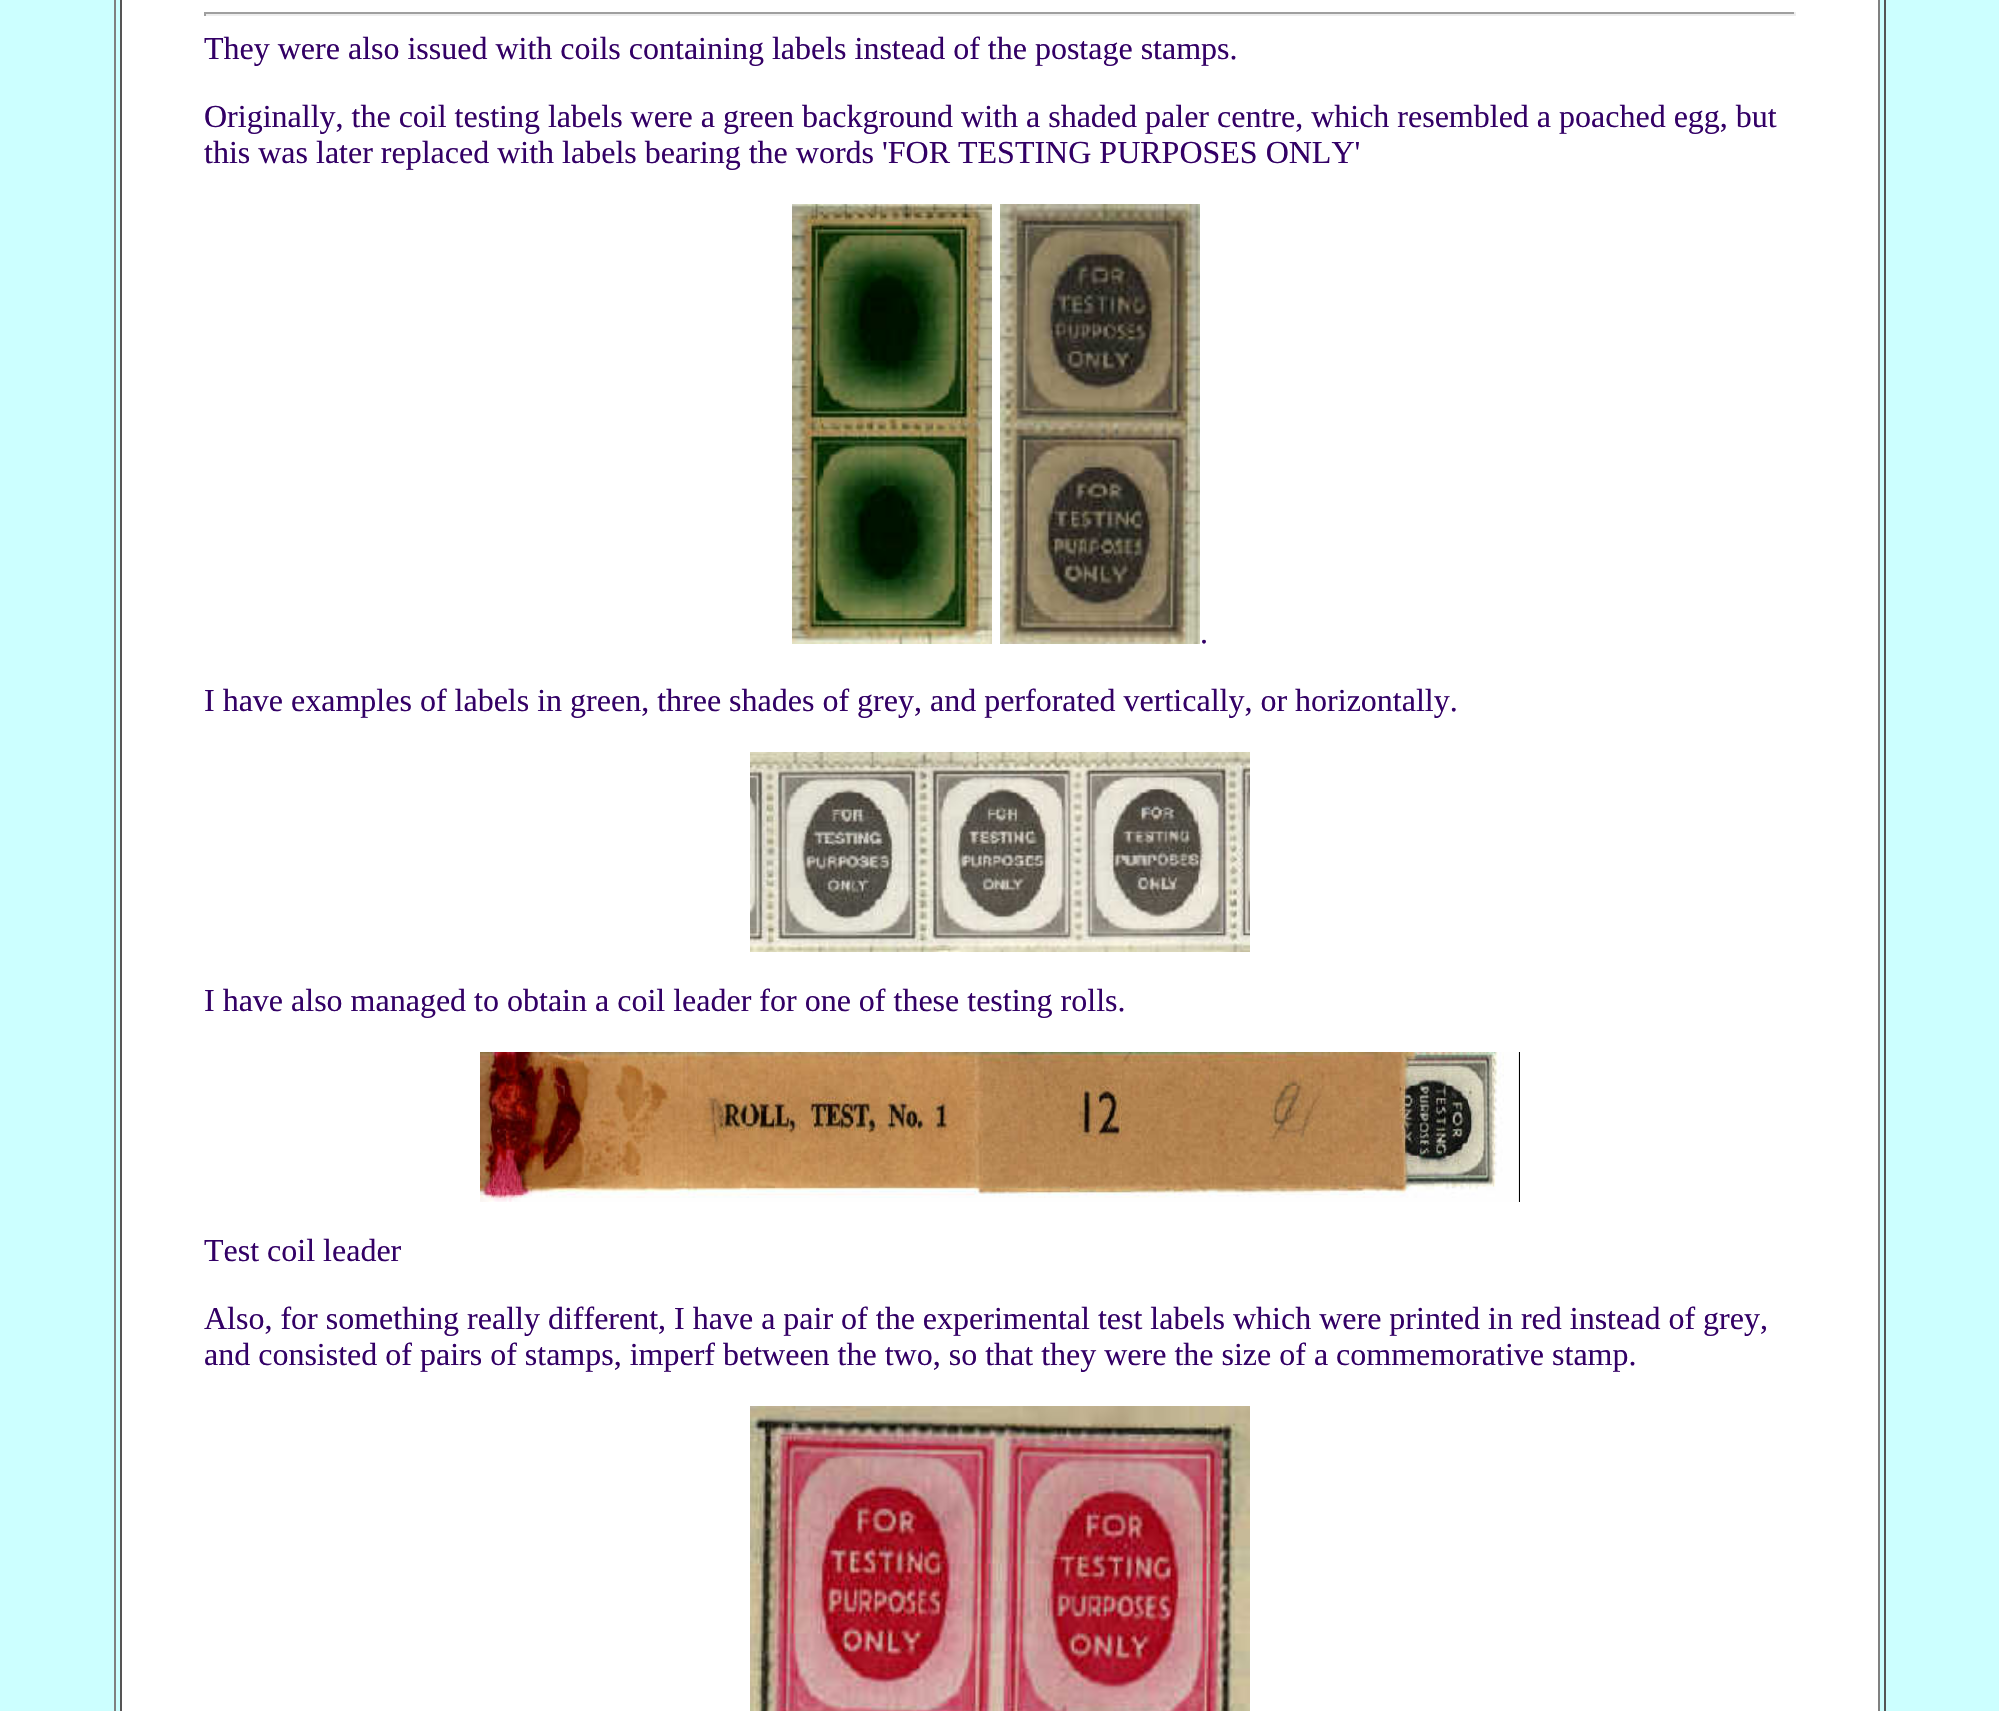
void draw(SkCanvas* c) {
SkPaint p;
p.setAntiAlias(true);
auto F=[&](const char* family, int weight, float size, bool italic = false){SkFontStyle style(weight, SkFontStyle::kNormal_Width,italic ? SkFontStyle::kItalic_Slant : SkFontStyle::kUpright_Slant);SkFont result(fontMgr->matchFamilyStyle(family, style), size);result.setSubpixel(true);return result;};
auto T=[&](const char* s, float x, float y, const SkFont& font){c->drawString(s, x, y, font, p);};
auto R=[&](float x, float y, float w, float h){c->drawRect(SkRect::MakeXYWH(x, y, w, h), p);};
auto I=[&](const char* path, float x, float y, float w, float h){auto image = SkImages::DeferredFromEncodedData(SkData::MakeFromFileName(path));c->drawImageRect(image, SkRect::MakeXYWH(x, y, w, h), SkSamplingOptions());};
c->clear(0xffccffff);
p.setColor(0xff555555);
R(1884,0,2,1711);
p.setColor(0xff808080);
R(114,0,2,1711);
p.setColor(0xffffffff);
R(122,0,1756,1711);
p.setColor(0xff808080);
R(1878,0,2,1711);
p.setColor(0xff555555);
R(120,0,2,1711);
p.setColor(0xff9f9f9f);
R(204,12,1592,2);
p.setColor(0xffeeeeee);
R(1794,12,2,4);
R(204,14,1592,2);
p.setColor(0xff9f9f9f);
R(204,12,2,4);
auto f1 = F("Liberation Serif",400,32);
p.setColor(0xff330066);
T("They were also issued with coils containing labels instead of the postage stamps.",204,59,f1);
T("Originally, the coil testing labels were a green background with a shaded paler centre, which resembled a poached egg, but",204,127,f1);
T("this was later replaced with labels bearing the words 'FOR TESTING PURPOSES ONLY'",204,163,f1);
I("1.png",792,204,200,440);
I("2.png",1000,204,200,440);
T(".",1200,643,f1);
T("I have examples of labels in green, three shades of grey, and perforated vertically, or horizontally.",204,711,f1);
I("3.png",750,752,500,200);
T("I have also managed to obtain a coil leader for one of these testing rolls.",204,1011,f1);
I("4.png",480,1052,1040,150);
T("Test coil leader",204,1261,f1);
T("Also, for something really different, I have a pair of the experimental test labels which were printed in red instead of grey,",204,1329,f1);
T("and consisted of pairs of stamps, imperf between the two, so that they were the size of a commemorative stamp.",204,1365,f1);
I("5.png",750,1406,500,305);
}
